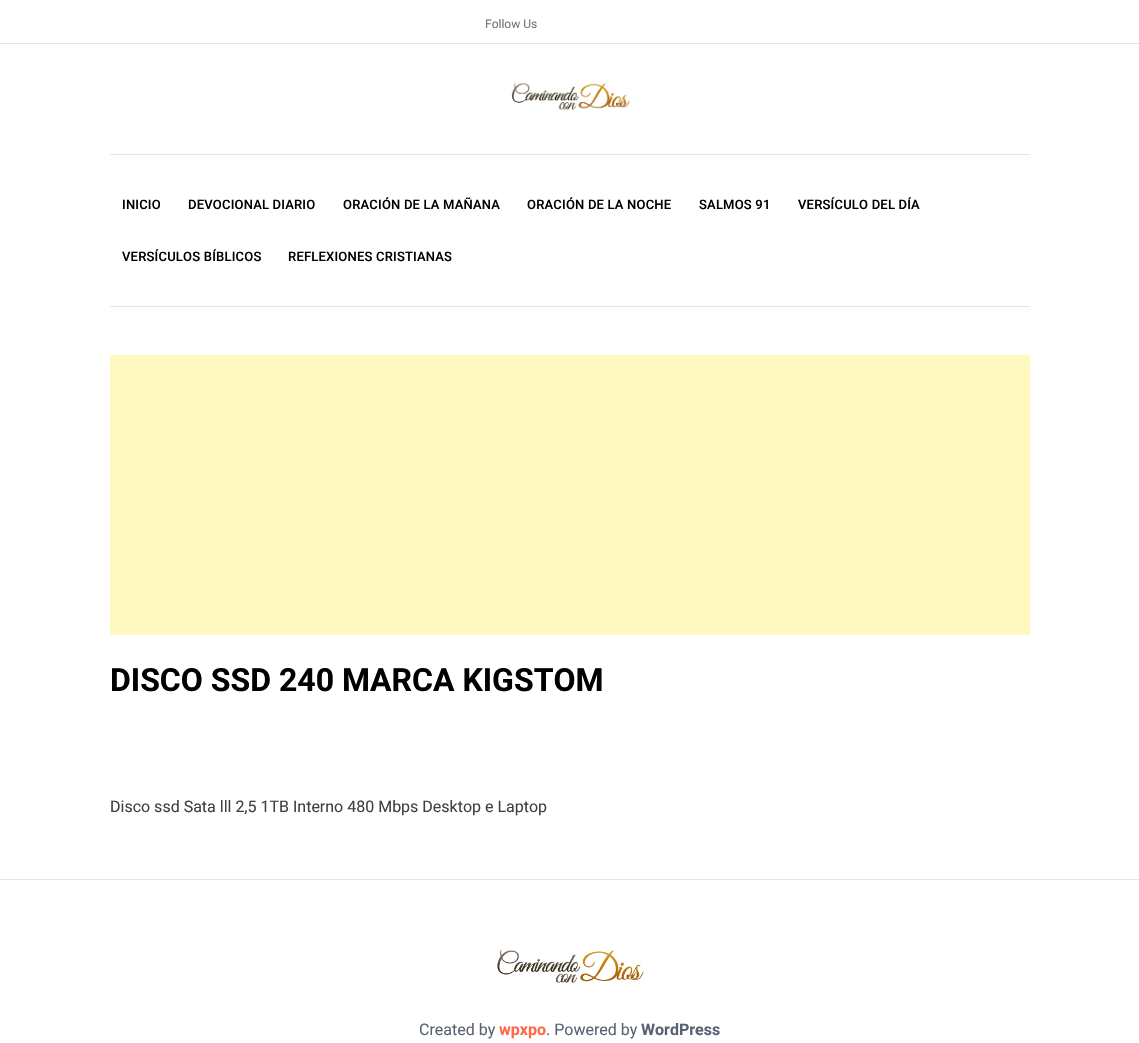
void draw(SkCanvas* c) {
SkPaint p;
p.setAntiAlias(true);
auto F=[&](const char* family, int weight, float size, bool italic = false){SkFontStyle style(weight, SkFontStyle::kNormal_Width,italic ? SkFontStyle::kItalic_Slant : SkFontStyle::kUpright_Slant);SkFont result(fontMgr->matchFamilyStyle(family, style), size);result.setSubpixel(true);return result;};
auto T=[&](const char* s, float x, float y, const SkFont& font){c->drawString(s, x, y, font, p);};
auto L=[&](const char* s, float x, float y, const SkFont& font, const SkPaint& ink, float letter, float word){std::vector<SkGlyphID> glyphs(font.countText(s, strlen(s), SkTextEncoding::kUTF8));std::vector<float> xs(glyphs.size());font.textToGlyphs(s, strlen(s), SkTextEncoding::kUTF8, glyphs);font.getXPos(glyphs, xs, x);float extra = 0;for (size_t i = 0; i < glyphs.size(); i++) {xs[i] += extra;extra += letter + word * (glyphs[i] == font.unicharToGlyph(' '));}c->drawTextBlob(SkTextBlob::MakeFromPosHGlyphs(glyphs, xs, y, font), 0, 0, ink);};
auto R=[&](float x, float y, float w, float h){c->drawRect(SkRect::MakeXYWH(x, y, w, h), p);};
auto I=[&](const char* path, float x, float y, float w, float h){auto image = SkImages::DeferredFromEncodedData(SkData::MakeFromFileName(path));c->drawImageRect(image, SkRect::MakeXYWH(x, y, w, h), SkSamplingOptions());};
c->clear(0xffffffff);
p.setColor(0xffe5e5e5);
R(0,43,1139,1);
auto f1 = F("Roboto",400,12);
p.setColor(0xff757575);
T("Follow Us",485,28,f1);
I("1.png",511,82,119,28);
p.setColor(0xffe5e5e5);
R(110,154,920,1);
R(110,306,920,1);
auto f2 = F("Roboto",500,13);
p.setColor(0xff000000);
L("INICIO",122,209,f2,p,.2,0);
L("DEVOCIONAL DIARIO",188,209,f2,p,.2,0);
L("ORACIÓN DE LA MAÑANA",343,209,f2,p,.2,0);
L("ORACIÓN DE LA NOCHE",527,209,f2,p,.2,0);
L("SALMOS 91",699,209,f2,p,.2,0);
L("VERSÍCULO DEL DÍA",798,209,f2,p,.2,0);
L("VERSÍCULOS BÍBLICOS",122,261,f2,p,.2,0);
L("REFLEXIONES CRISTIANAS",288,261,f2,p,.2,0);
p.setColor(0xfffff9c0);
R(110,355,920,280);
auto f3 = F("Roboto",700,32);
p.setColor(0xff000000);
T("DISCO SSD 240 MARCA KIGSTOM",110,691,f3);
auto f4 = F("Roboto",400,16);
p.setColor(0xff3f4044);
T("Disco ssd Sata lll 2,5 1TB Interno 480 Mbps Desktop e Laptop",110,812,f4);
p.setColor(0xffe5e5e5);
R(0,879,1139,1);
I("2.png",497,950,147,33);
p.setColor(0xff596172);
T("Created by",419,1035,f4);
auto f5 = F("Roboto",700,16);
p.setColor(0xffff6845);
T("wpxpo",499,1035,f5);
p.setColor(0xff596172);
T(". Powered by",546,1035,f4);
T("WordPress",641,1035,f5);
}
